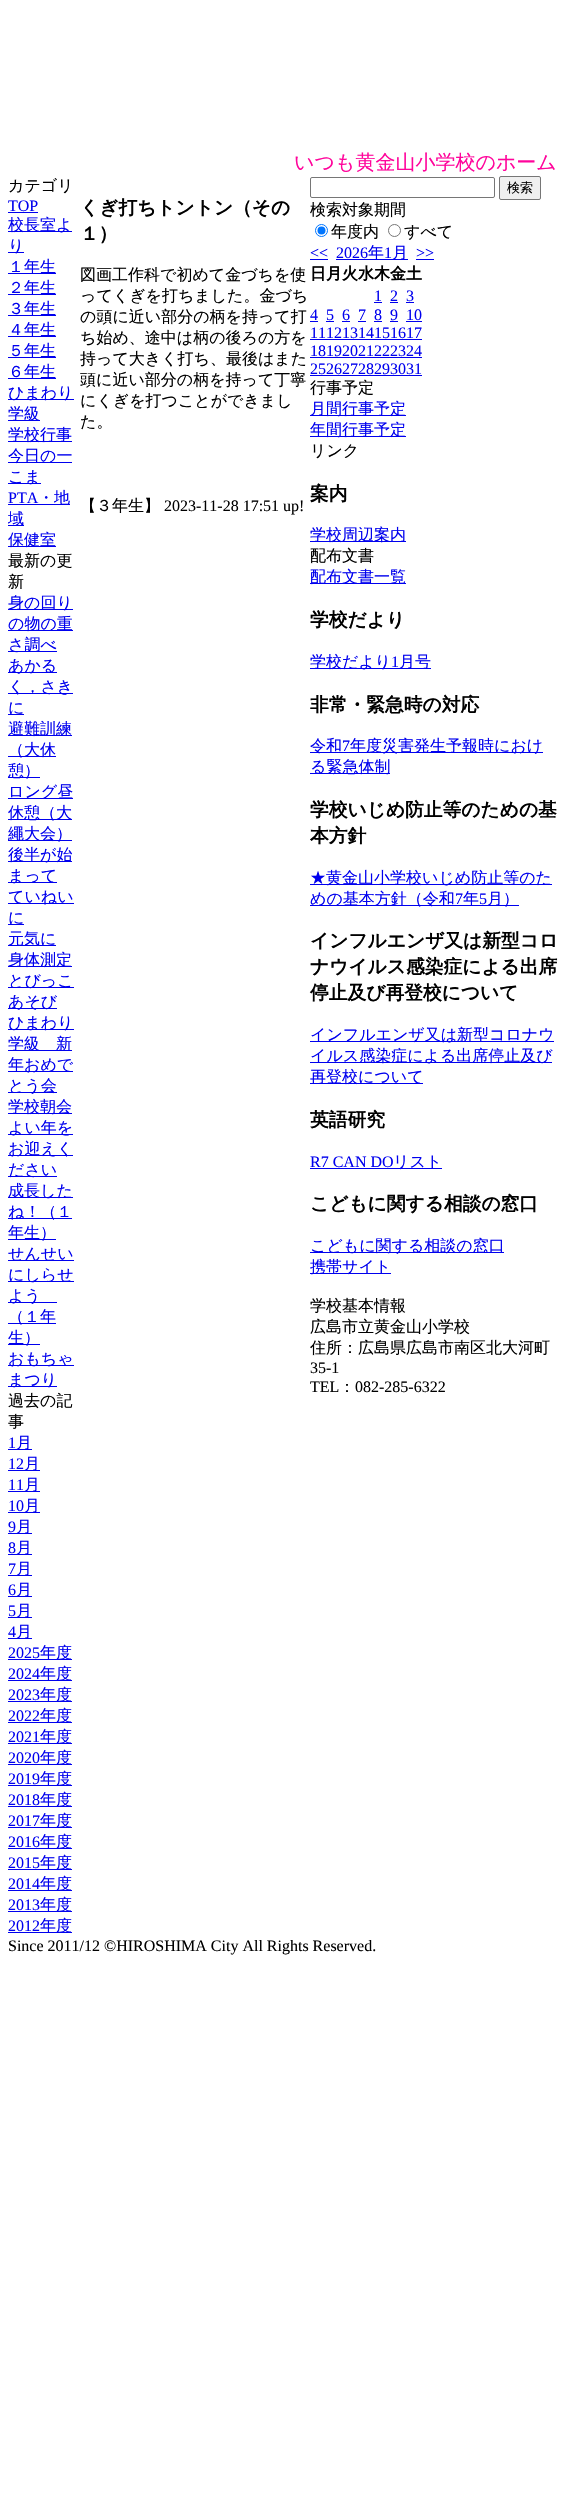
void draw(SkCanvas* c) {
SkPaint p;
p.setAntiAlias(true);
auto F=[&](const char* family, int weight, float size, bool italic = false){SkFontStyle style(weight, SkFontStyle::kNormal_Width,italic ? SkFontStyle::kItalic_Slant : SkFontStyle::kUpright_Slant);SkFont result(fontMgr->matchFamilyStyle(family, style), size);result.setSubpixel(true);return result;};
auto T=[&](const char* s, float x, float y, const SkFont& font){c->drawString(s, x, y, font, p);};
auto R=[&](float x, float y, float w, float h){c->drawRect(SkRect::MakeXYWH(x, y, w, h), p);};
c->clear(0xffffffff);
auto f1 = F("WenQuanYi Zen Hei",500,20);
p.setColor(0xffff049b);
T("いつも黄金山小学校のホーム",294,169,f1);
auto f2 = F("WenQuanYi Zen Hei",500,16);
p.setColor(0xff000000);
T("カテゴリ",8,191,f2);
auto f3 = F("Liberation Serif",400,16);
p.setColor(0xff0000ee);
T("TOP",8,211,f3);
R(8,212,30,1);
R(8,231,64,1);
T("校長室よ",8,230,f2);
R(8,252,16,1);
T("り",8,251,f2);
R(8,273,48,1);
T("１年生",8,272,f2);
R(8,294,48,1);
T("２年生",8,293,f2);
R(8,315,48,1);
T("３年生",8,314,f2);
R(8,336,48,1);
T("４年生",8,335,f2);
R(8,357,48,1);
T("５年生",8,356,f2);
R(8,378,48,1);
T("６年生",8,377,f2);
R(8,399,66,1);
T("ひまわり",8,398,f2);
R(8,420,32,1);
T("学級",8,419,f2);
R(8,441,64,1);
T("学校行事",8,440,f2);
R(8,462,64,1);
T("今日の一",8,461,f2);
R(8,483,33,1);
T("こま",8,482,f2);
T("PTA",8,503,f3);
R(8,504,62,1);
T("・地",38,503,f2);
R(8,525,16,1);
T("域",8,524,f2);
R(8,546,48,1);
T("保健室",8,545,f2);
p.setColor(0xff000000);
T("最新の更",8,566,f2);
T("新",8,587,f2);
p.setColor(0xff0000ee);
R(8,609,65,1);
T("身の回り",8,608,f2);
R(8,630,65,1);
T("の物の重",8,629,f2);
R(8,651,49,1);
T("さ調べ",8,650,f2);
R(8,672,49,1);
T("あかる",8,671,f2);
R(8,693,65,1);
T("く，さき",8,692,f2);
R(8,714,16,1);
T("に",8,713,f2);
R(8,735,64,1);
T("避難訓練",8,734,f2);
R(8,756,48,1);
T("（大休",8,755,f2);
R(8,777,32,1);
T("憩）",8,776,f2);
R(8,798,65,1);
T("ロング昼",8,797,f2);
R(8,819,64,1);
T("休憩（大",8,818,f2);
R(8,840,64,1);
T("繩大会）",8,839,f2);
R(8,861,64,1);
T("後半が始",8,860,f2);
R(8,882,49,1);
T("まって",8,881,f2);
R(8,903,66,1);
T("ていねい",8,902,f2);
R(8,924,16,1);
T("に",8,923,f2);
R(8,945,48,1);
T("元気に",8,944,f2);
R(8,966,64,1);
T("身体測定",8,965,f2);
R(8,987,66,1);
T("とびっこ",8,986,f2);
R(8,1008,49,1);
T("あそび",8,1007,f2);
R(8,1029,66,1);
T("ひまわり",8,1028,f2);
R(8,1050,64,1);
T("学級　新",8,1049,f2);
R(8,1071,65,1);
T("年おめで",8,1070,f2);
R(8,1092,49,1);
T("とう会",8,1091,f2);
R(8,1113,64,1);
T("学校朝会",8,1112,f2);
R(8,1134,65,1);
T("よい年を",8,1133,f2);
R(8,1155,65,1);
T("お迎えく",8,1154,f2);
R(8,1176,49,1);
T("ださい",8,1175,f2);
R(8,1197,65,1);
T("成長した",8,1196,f2);
R(8,1218,64,1);
T("ね！（１",8,1217,f2);
R(8,1239,48,1);
T("年生）",8,1238,f2);
R(8,1260,66,1);
T("せんせい",8,1259,f2);
R(8,1281,66,1);
T("にしらせ",8,1280,f2);
R(8,1302,49,1);
T("よう",8,1301,f2);
R(8,1323,48,1);
T("（１年",8,1322,f2);
R(8,1344,32,1);
T("生）",8,1343,f2);
R(8,1365,66,1);
T("おもちゃ",8,1364,f2);
R(8,1386,49,1);
T("まつり",8,1385,f2);
p.setColor(0xff000000);
T("過去の記",8,1406,f2);
T("事",8,1427,f2);
p.setColor(0xff0000ee);
T("1",8,1448,f3);
R(8,1449,24,1);
T("月",16,1448,f2);
T("12",8,1469,f3);
R(8,1470,32,1);
T("月",24,1469,f2);
T("11",8,1490,f3);
R(8,1491,32,1);
T("月",24,1490,f2);
T("10",8,1511,f3);
R(8,1512,32,1);
T("月",24,1511,f2);
T("9",8,1532,f3);
R(8,1533,24,1);
T("月",16,1532,f2);
T("8",8,1553,f3);
R(8,1554,24,1);
T("月",16,1553,f2);
T("7",8,1574,f3);
R(8,1575,24,1);
T("月",16,1574,f2);
T("6",8,1595,f3);
R(8,1596,24,1);
T("月",16,1595,f2);
T("5",8,1616,f3);
R(8,1617,24,1);
T("月",16,1616,f2);
T("4",8,1637,f3);
R(8,1638,24,1);
T("月",16,1637,f2);
T("2025",8,1658,f3);
R(8,1659,64,1);
T("年度",40,1658,f2);
T("2024",8,1679,f3);
R(8,1680,64,1);
T("年度",40,1679,f2);
T("2023",8,1700,f3);
R(8,1701,64,1);
T("年度",40,1700,f2);
T("2022",8,1721,f3);
R(8,1722,64,1);
T("年度",40,1721,f2);
T("2021",8,1742,f3);
R(8,1743,64,1);
T("年度",40,1742,f2);
T("2020",8,1763,f3);
R(8,1764,64,1);
T("年度",40,1763,f2);
T("2019",8,1784,f3);
R(8,1785,64,1);
T("年度",40,1784,f2);
T("2018",8,1805,f3);
R(8,1806,64,1);
T("年度",40,1805,f2);
T("2017",8,1826,f3);
R(8,1827,64,1);
T("年度",40,1826,f2);
T("2016",8,1847,f3);
R(8,1848,64,1);
T("年度",40,1847,f2);
T("2015",8,1868,f3);
R(8,1869,64,1);
T("年度",40,1868,f2);
T("2014",8,1889,f3);
R(8,1890,64,1);
T("年度",40,1889,f2);
T("2013",8,1910,f3);
R(8,1911,64,1);
T("年度",40,1910,f2);
T("2012",8,1931,f3);
R(8,1932,64,1);
T("年度",40,1931,f2);
auto f4 = F("WenQuanYi Zen Hei",700,18.75);
p.setColor(0xff000000);
T("くぎ打ちトントン（その",80,214,f4);
T("１）",80,240,f4);
T("図画工作科で初めて金づちを使",80,280,f2);
T("ってくぎを打ちました。金づち",80,301,f2);
T("の頭に近い部分の柄を持って打",80,322,f2);
T("ち始め、途中は柄の後ろの方を",80,343,f2);
T("持って大きく打ち、最後はまた",80,364,f2);
T("頭に近い部分の柄を持って丁寧",80,385,f2);
T("にくぎを打つことができまし",80,406,f2);
T("た。",80,427,f2);
T("【３年生】",80,511,f2);
T("2023-11-28 17:51 up!",164,511,f3);
p.setStroke(true);
p.setStrokeWidth(1);
p.setColor(0xff767676);
c->drawRoundRect(SkRect::MakeXYWH(310.5,177.5,184,20),1.5,1.5,p);
p.setStroke(false);
p.setColor(0xffefefef);
c->drawRoundRect(SkRect::MakeXYWH(499.5,176.5,41,23),1.5,1.5,p);
p.setStroke(true);
p.setColor(0xff767676);
c->drawRoundRect(SkRect::MakeXYWH(499.5,176.5,41,23),1.5,1.5,p);
auto f5 = F("WenQuanYi Zen Hei",500,13);
p.setStroke(false);
p.setColor(0xff000000);
T("検索",507,192,f5);
T("検索対象期間",310,215,f2);
p.setStroke(true);
p.setColor(0xff0075ff);
c->drawCircle(321.5,230.5,6,p);
p.setStroke(false);
c->drawCircle(321.5,230.5,4,p);
p.setColor(0xff000000);
T("年度内",331,237,f2);
p.setStroke(true);
p.setColor(0xff767676);
c->drawCircle(394.5,230.5,6,p);
p.setStroke(false);
p.setColor(0xff000000);
T("すべて",404,237,f2);
p.setColor(0xff0000ee);
T("<<",310,258,f3);
R(310,259,18,1);
T("2026",336,258,f3);
R(336,259,72,1);
T("年",368,258,f2);
T("1",384,258,f3);
T("月",392,258,f2);
T(">>",416,258,f3);
R(416,259,18,1);
auto f6 = F("WenQuanYi Zen Hei",700,16);
p.setColor(0xff000000);
T("日月火水木金土",310,279,f6);
p.setColor(0xff0000ee);
T("1",374,301,f3);
R(374,302,8,1);
T("2",390,301,f3);
R(390,302,8,1);
T("3",406,301,f3);
R(406,302,8,1);
T("4",310,320,f3);
R(310,321,8,1);
T("5",326,320,f3);
R(326,321,8,1);
T("6",342,320,f3);
R(342,321,8,1);
T("7",358,320,f3);
R(358,321,8,1);
T("8",374,320,f3);
R(374,321,8,1);
T("9",390,320,f3);
R(390,321,8,1);
T("10",406,320,f3);
R(406,321,16,1);
T("11121314151617",310,338,f3);
R(310,339,112,1);
T("18192021222324",310,356,f3);
R(310,357,112,1);
T("25262728293031",310,374,f3);
R(310,375,112,1);
p.setColor(0xff000000);
T("行事予定",310,393,f2);
p.setColor(0xff0000ee);
R(310,415,96,1);
T("月間行事予定",310,414,f2);
R(310,436,96,1);
T("年間行事予定",310,435,f2);
p.setColor(0xff000000);
T("リンク",310,456,f2);
T("案内",310,500,f4);
p.setColor(0xff0000ee);
R(310,541,96,1);
T("学校周辺案内",310,540,f2);
p.setColor(0xff000000);
T("配布文書",310,561,f2);
p.setColor(0xff0000ee);
R(310,583,96,1);
T("配布文書一覧",310,582,f2);
p.setColor(0xff000000);
T("学校だより",310,626,f4);
p.setColor(0xff0000ee);
R(310,668,121,1);
T("学校だより",310,667,f2);
T("1",391,667,f3);
T("月号",399,667,f2);
p.setColor(0xff000000);
T("非常・緊急時の対応",310,711,f4);
p.setColor(0xff0000ee);
R(310,752,233,1);
T("令和",310,751,f2);
T("7",342,751,f3);
T("年度災害発生予報時におけ",350,751,f2);
R(310,773,80,1);
T("る緊急体制",310,772,f2);
p.setColor(0xff000000);
T("学校いじめ防止等のための基",310,816,f4);
T("本方針",310,842,f4);
p.setColor(0xff0000ee);
R(310,884,242,1);
T("★黄金山小学校いじめ防止等のた",310,883,f2);
R(310,905,209,1);
T("めの基本方針（令和",310,904,f2);
T("7",455,904,f3);
T("年",463,904,f2);
T("5",479,904,f3);
T("月）",487,904,f2);
p.setColor(0xff000000);
T("インフルエンザ又は新型コロ",310,947,f4);
T("ナウイルス感染症による出席",310,973,f4);
T("停止及び再登校について",310,999,f4);
p.setColor(0xff0000ee);
R(310,1041,244,1);
T("インフルエンザ又は新型コロナウ",310,1040,f2);
R(310,1062,242,1);
T("イルス感染症による出席停止及び",310,1061,f2);
R(310,1083,113,1);
T("再登校について",310,1082,f2);
p.setColor(0xff000000);
T("英語研究",310,1126,f4);
p.setColor(0xff0000ee);
T("R7 CAN DO",310,1167,f3);
R(310,1168,132,1);
T("リスト",393,1167,f2);
p.setColor(0xff000000);
T("こどもに関する相談の窓口",310,1210,f4);
p.setColor(0xff0000ee);
R(310,1252,194,1);
T("こどもに関する相談の窓口",310,1251,f2);
R(310,1273,81,1);
T("携帯サイト",310,1272,f2);
p.setColor(0xff000000);
T("学校基本情報",310,1311,f2);
T("広島市立黄金山小学校",310,1332,f2);
T("住所：広島県広島市南区北大河町",310,1353,f2);
T("35-1",310,1373,f3);
T("TEL",310,1392,f3);
T("：",339,1392,f2);
T("082-285-6322",355,1392,f3);
T("Since 2011/12 ©HIROSHIMA City All Rights Reserved.",8,1951,f3);
}
